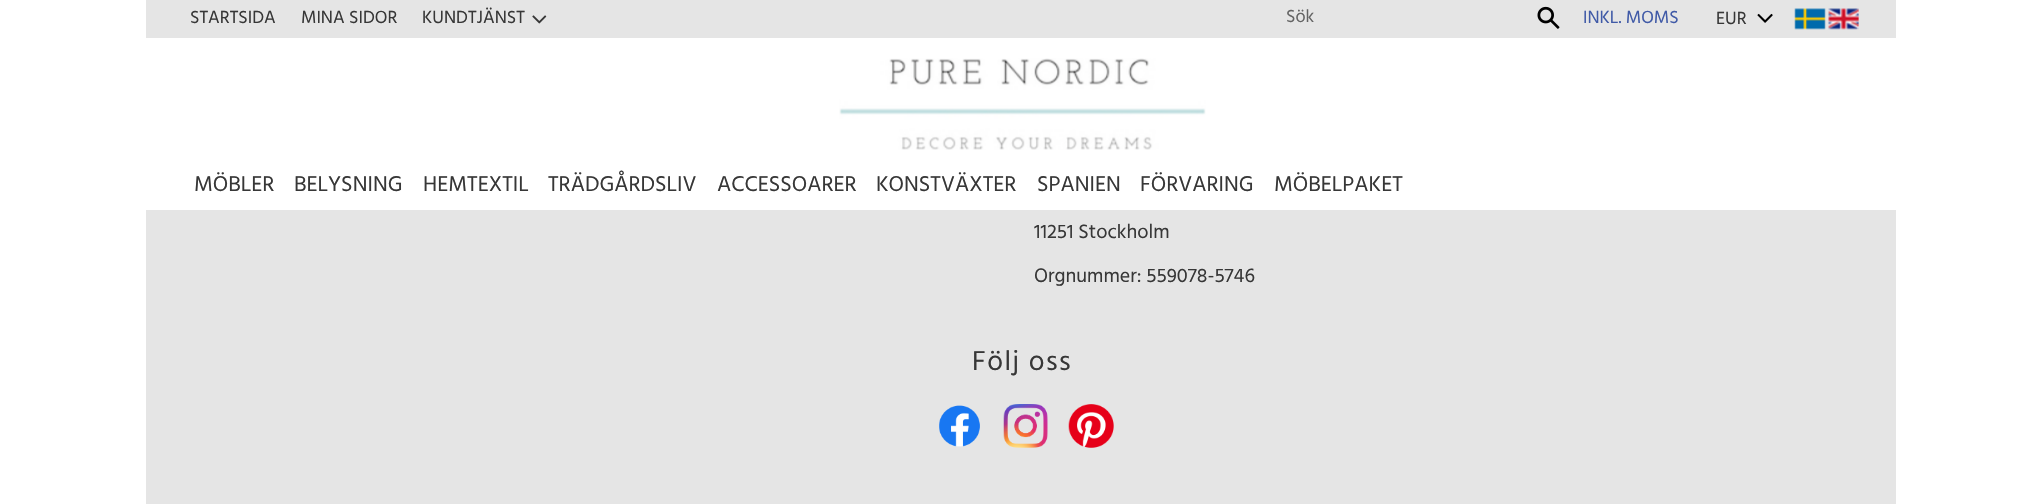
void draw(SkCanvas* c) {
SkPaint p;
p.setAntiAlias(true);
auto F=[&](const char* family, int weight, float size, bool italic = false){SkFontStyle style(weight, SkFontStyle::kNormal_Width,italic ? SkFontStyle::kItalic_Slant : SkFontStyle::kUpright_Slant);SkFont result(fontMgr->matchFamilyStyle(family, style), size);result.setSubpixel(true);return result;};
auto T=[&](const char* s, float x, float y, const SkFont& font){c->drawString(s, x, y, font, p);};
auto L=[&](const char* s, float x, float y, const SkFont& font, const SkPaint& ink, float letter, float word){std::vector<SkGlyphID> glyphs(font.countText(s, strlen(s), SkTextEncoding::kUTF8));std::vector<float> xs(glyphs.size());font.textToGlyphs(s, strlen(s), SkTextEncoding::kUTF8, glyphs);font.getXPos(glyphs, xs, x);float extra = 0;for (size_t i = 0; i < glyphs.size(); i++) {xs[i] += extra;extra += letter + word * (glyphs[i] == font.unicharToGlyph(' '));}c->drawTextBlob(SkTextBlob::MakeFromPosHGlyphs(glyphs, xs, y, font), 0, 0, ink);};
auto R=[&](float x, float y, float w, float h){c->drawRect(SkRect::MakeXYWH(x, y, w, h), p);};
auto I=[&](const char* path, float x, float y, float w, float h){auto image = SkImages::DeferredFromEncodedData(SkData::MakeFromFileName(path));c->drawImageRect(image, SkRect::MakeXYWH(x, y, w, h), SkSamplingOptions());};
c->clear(0xffffffff);
p.setColor(0xffe5e5e5);
R(146,0,1750,38);
auto f1 = F("Hind",400,18);
p.setColor(0xff373737);
T("STARTSIDA",190,23,f1);
T("MINA SIDOR",301,23,f1);
T("KUNDTJÄNST",422,23,f1);
I("1.png",532,15,15,9);
p.setColor(0xff646464);
T("Sök",1286,22,f1);
I("2.png",1537,6,23,23);
p.setColor(0xff405aa7);
T("INKL. MOMS",1583,23,f1);
p.setColor(0xff373737);
T("EUR",1716,24,f1);
I("3.png",1757,13,16,10);
I("4.png",1794,8,32,22);
I("5.png",1828,8,31,22);
I("6.png",839,58,367,92);
auto f2 = F("Hind",400,22);
T("MÖBLER",194,191,f2);
T("BELYSNING",294,191,f2);
T("HEMTEXTIL",423,191,f2);
T("TRÄDGÅRDSLIV",548,191,f2);
T("ACCESSOARER",717,191,f2);
T("KONSTVÄXTER",876,191,f2);
T("SPANIEN",1037,191,f2);
T("FÖRVARING",1140,191,f2);
T("MÖBELPAKET",1274,191,f2);
p.setColor(0xffe5e5e5);
R(146,210,1750,294);
auto f3 = F("Hind",400,20);
p.setColor(0xff373737);
T("11251 Stockholm",1034,238,f3);
T("Orgnummer: 559078-5746",1034,282,f3);
auto f4 = F("Hind",400,28);
L("Följ oss",972,370,f4,p,1.5,0);
I("7.png",939,405,41,42);
I("8.png",1003,404,45,44);
I("9.png",1068,404,46,44);
}
